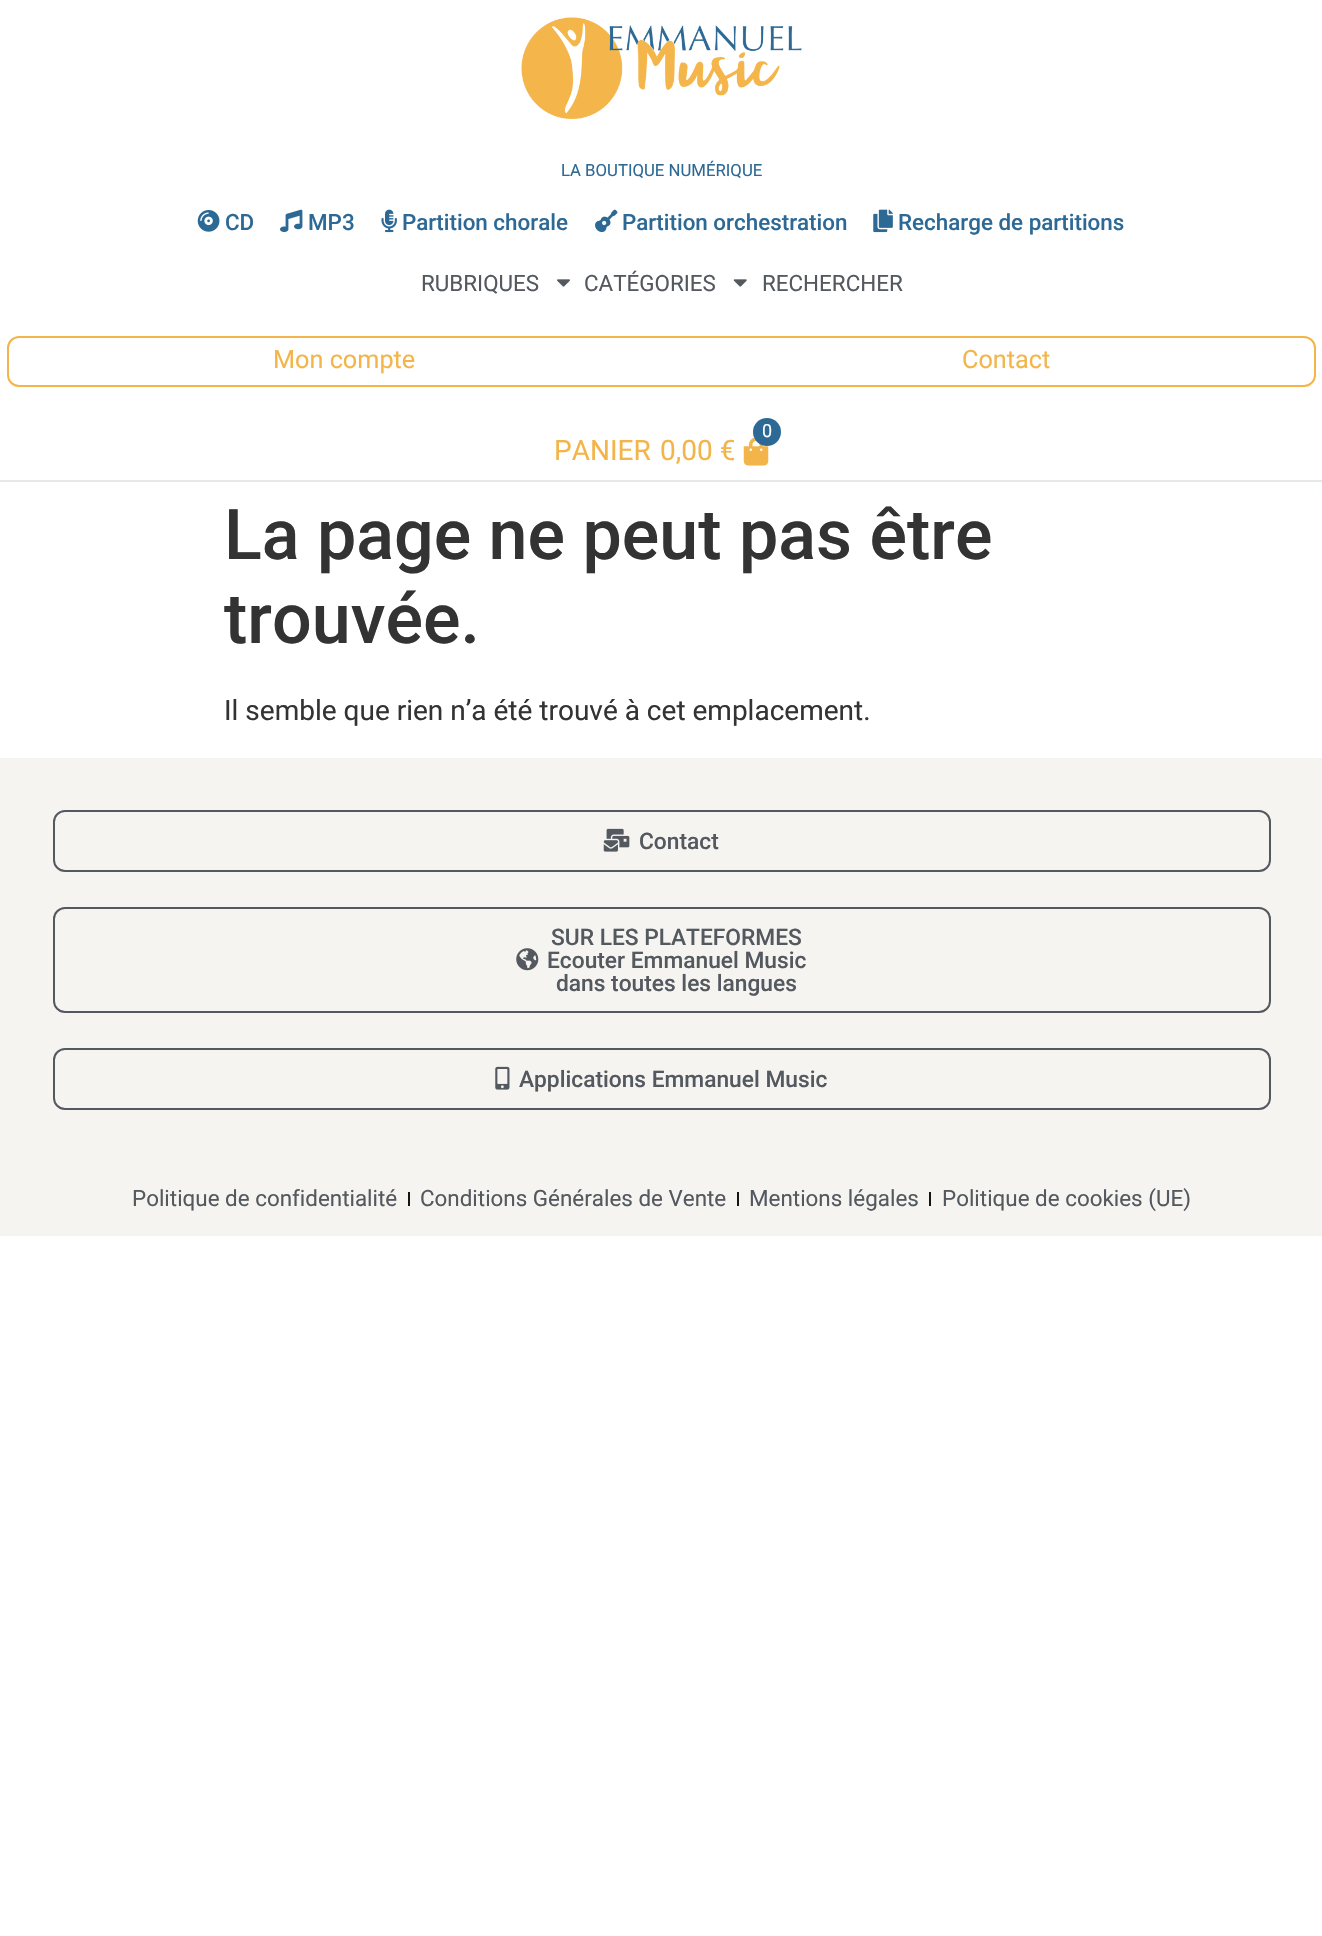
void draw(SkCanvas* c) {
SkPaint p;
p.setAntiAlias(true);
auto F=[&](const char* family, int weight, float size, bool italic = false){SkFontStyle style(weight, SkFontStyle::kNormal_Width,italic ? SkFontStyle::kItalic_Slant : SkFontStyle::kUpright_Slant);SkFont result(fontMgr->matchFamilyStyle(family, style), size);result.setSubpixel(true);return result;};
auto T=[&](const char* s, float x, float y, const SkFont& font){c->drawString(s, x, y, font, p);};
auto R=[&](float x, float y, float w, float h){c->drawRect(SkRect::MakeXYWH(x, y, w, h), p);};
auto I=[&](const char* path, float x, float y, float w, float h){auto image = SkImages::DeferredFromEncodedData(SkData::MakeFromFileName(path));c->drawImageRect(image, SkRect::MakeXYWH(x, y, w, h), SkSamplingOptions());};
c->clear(0xffffffff);
p.setColor(0xffe6e9ec);
R(0,480,1322,2);
I("1.png",521,17,281,102);
auto f1 = F("Roboto",400,16.75);
p.setColor(0xff2d6995);
T("LA BOUTIQUE NUMÉRIQUE",561,176,f1);
I("2.png",197,210,23,22);
auto f2 = F("Roboto",500,22.4);
T("CD",225,230,f2);
I("3.png",280,209,23,23);
T("MP3",308,230,f2);
I("4.png",381,209,16,24);
T("Partition chorale",402,230,f2);
I("5.png",595,209,23,23);
T("Partition orchestration",622,230,f2);
I("6.png",873,209,20,24);
T("Recharge de partitions",898,230,f2);
auto f3 = F("Roboto",400,22.4);
p.setColor(0xff54595f);
T("RUBRIQUES",421,291,f3);
I("7.png",557,279,13,8);
T("CATÉGORIES",584,291,f3);
I("8.png",733,279,14,8);
T("RECHERCHER",762,291,f3);
p.setStroke(true);
p.setStrokeWidth(2);
p.setColor(0xfff3b54a);
c->drawRoundRect(SkRect::MakeXYWH(8,337,1307,49),11,11,p);
auto f4 = F("Roboto",400,25.25);
p.setStroke(false);
T("Mon compte",273,368,f4);
T("Contact",962,368,f4);
I("9.png",743,437,26,29);
p.setColor(0xff2d6995);
c->drawCircle(767,432,14,p);
auto f5 = F("Roboto",400,18);
p.setColor(0xffffffff);
T("0",762,437,f5);
auto f6 = F("Roboto",400,28);
p.setColor(0xfff3b54a);
T("PANIER",554,460,f6);
T("0,00 €",660,460,f6);
auto f7 = F("Roboto",500,70);
p.setColor(0xff333333);
T("La page ne peut pas être",224,559,f7);
T("trouvée.",224,643,f7);
T("Il semble que rien n’a été trouvé à cet emplacement.",224,720,f6);
p.setColor(0xfff5f4f1);
R(0,758,1322,478);
p.setStroke(true);
p.setColor(0xff54595f);
c->drawRoundRect(SkRect::MakeXYWH(54,811,1216,60),11,11,p);
I("10.png",603,828,27,24);
auto f8 = F("Roboto",500,22.75);
p.setStroke(false);
T("Contact",639,849,f8);
p.setStroke(true);
c->drawRoundRect(SkRect::MakeXYWH(54,908,1216,104),11,11,p);
I("11.png",516,948,23,23);
p.setStroke(false);
T("SUR LES PLATEFORMES",551,945,f8);
T("Ecouter Emmanuel Music",547,968,f8);
T("dans toutes les langues",556,991,f8);
p.setStroke(true);
c->drawRoundRect(SkRect::MakeXYWH(54,1049,1216,60),11,11,p);
I("12.png",495,1066,15,24);
p.setStroke(false);
T("Applications Emmanuel Music",519,1087,f8);
T("Politique de confidentialité",132,1206,f3);
p.setColor(0xff151515);
R(408,1192,2,14);
p.setColor(0xff54595f);
T("Conditions Générales de Vente",420,1206,f3);
p.setColor(0xff151515);
R(737,1192,2,14);
p.setColor(0xff54595f);
T("Mentions légales",749,1206,f3);
p.setColor(0xff151515);
R(929,1192,2,14);
p.setColor(0xff54595f);
T("Politique de cookies (UE)",942,1206,f3);
}
